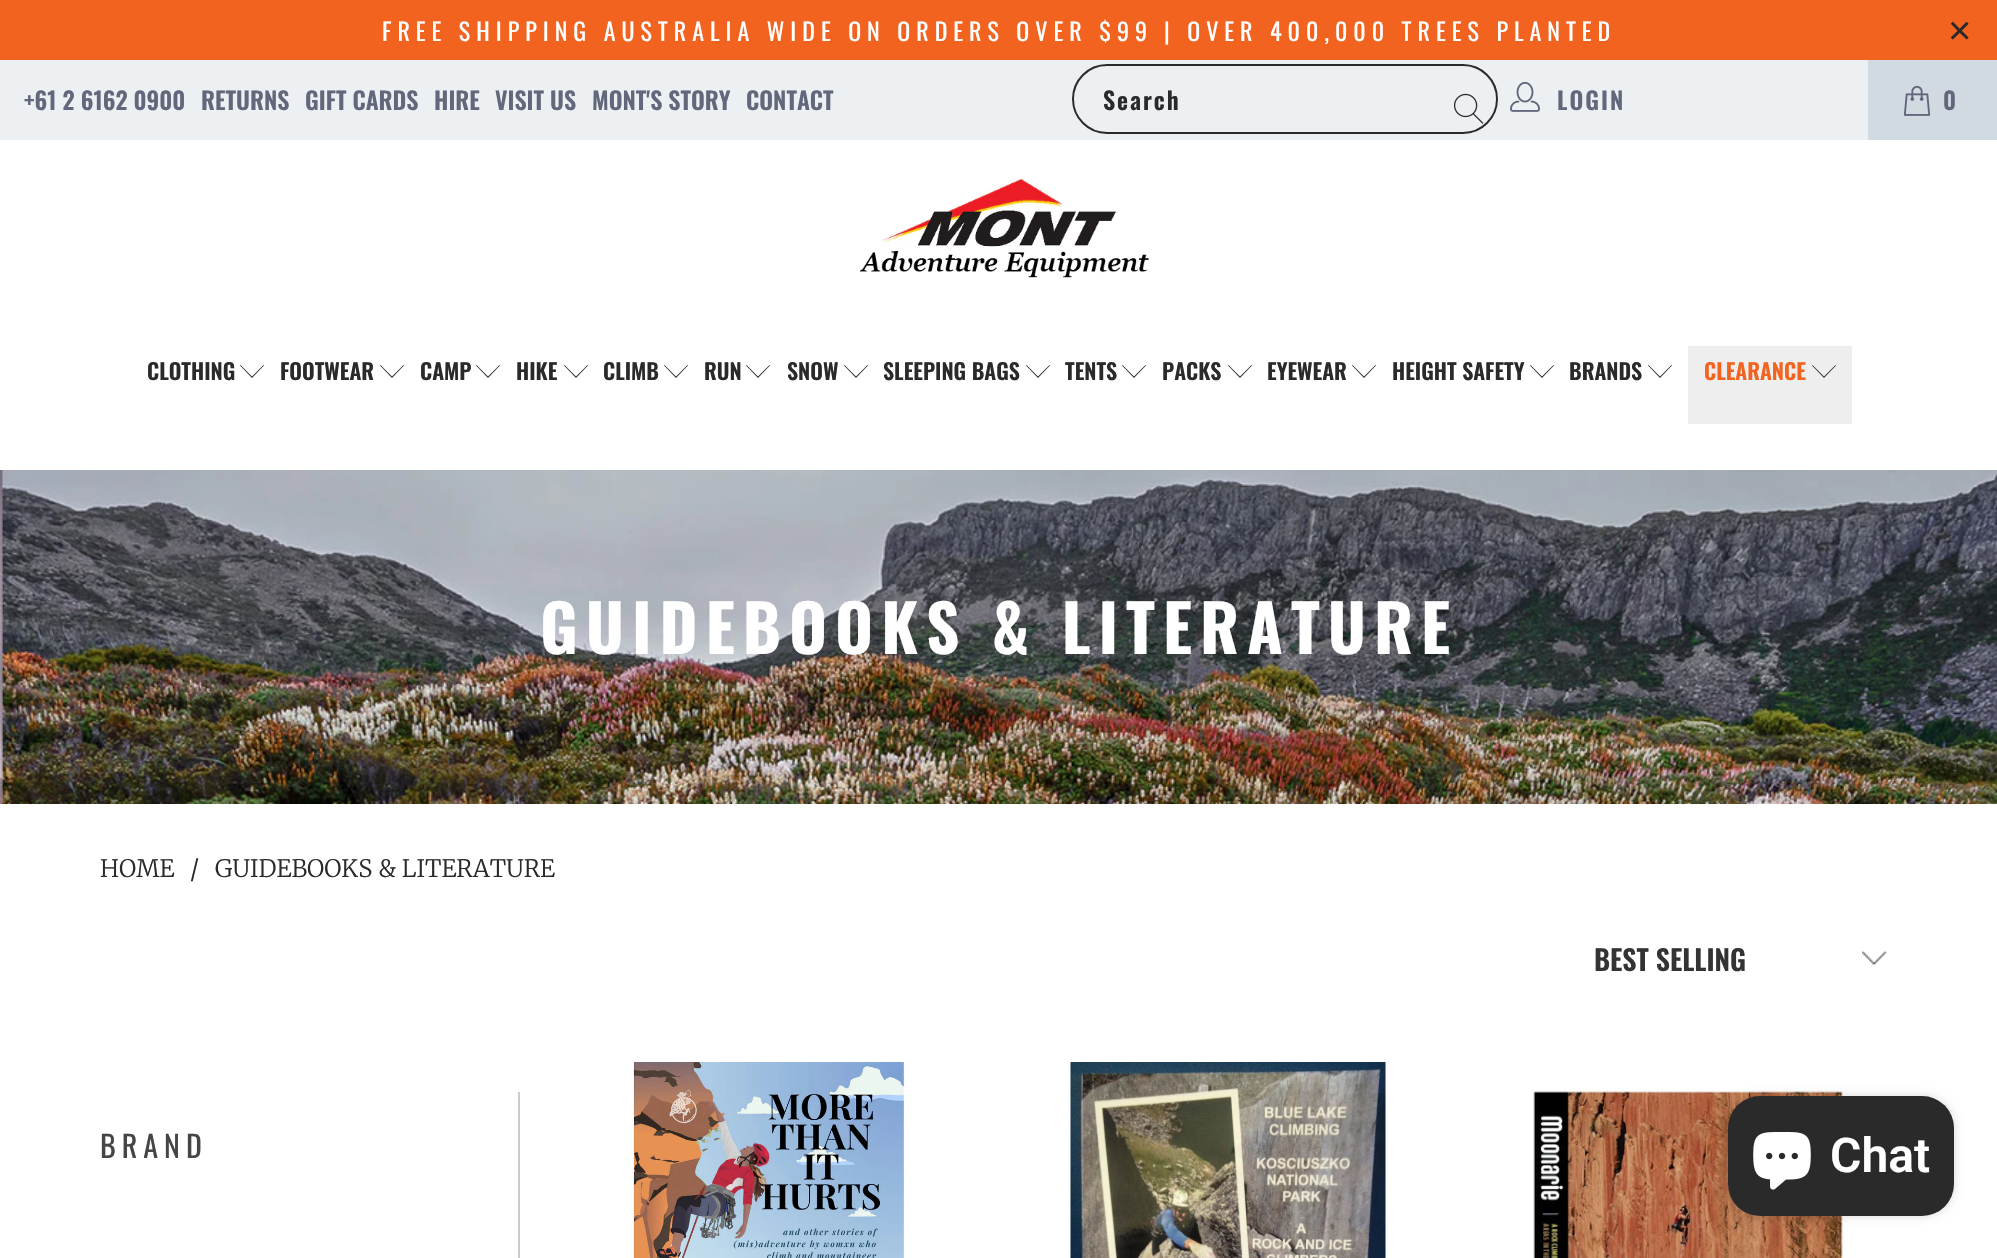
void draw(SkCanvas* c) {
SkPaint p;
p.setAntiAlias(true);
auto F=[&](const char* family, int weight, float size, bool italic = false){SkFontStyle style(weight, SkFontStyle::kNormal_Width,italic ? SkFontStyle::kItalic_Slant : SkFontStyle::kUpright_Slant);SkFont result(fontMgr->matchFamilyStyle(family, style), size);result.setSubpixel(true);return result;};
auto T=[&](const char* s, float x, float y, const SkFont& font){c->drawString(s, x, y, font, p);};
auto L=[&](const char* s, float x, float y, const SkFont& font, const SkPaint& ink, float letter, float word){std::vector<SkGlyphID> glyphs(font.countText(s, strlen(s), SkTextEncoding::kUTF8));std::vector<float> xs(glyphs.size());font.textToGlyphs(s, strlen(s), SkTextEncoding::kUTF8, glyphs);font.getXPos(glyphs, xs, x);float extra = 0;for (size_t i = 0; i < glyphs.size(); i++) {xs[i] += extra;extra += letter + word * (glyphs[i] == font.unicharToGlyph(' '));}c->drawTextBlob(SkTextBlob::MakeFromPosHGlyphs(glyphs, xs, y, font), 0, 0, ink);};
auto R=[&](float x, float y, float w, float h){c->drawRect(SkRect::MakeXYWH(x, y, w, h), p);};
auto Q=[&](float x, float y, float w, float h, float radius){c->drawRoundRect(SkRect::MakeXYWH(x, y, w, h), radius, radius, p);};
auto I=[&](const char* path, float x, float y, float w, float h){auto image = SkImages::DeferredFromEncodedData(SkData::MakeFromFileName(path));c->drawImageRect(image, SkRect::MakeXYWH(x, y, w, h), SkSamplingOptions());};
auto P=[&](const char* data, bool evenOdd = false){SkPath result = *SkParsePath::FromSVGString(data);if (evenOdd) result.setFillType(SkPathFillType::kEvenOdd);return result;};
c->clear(0xffffffff);
p.setColor(0xfff26320);
R(0,0,1997,60);
auto f1 = F("Oswald",400,24);
p.setColor(0xffffffff);
L("FREE SHIPPING AUSTRALIA WIDE ON ORDERS OVER $99",382,41,f1,p,6,0);
L("| OVER 400,000 TREES PLANTED",1164,41,f1,p,6,0);
auto f2 = F("Liberation Sans",400,40);
p.setColor(0xff2b2a2a);
L("×",1948,44,f2,p,6,0);
p.setColor(0xffecf0f3);
R(0,60,1868,80);
auto f3 = F("Oswald",600,24);
p.setColor(0xff62677b);
T("+61 2 6162 0900",24,110,f3);
T("RETURNS",201,110,f3);
T("GIFT CARDS",305,110,f3);
T("HIRE",434,110,f3);
T("VISIT US",495,110,f3);
T("MONT'S STORY",592,110,f3);
T("CONTACT",746,110,f3);
p.setStroke(true);
p.setStrokeWidth(2);
p.setColor(0xff2b2a2a);
c->drawRoundRect(SkRect::MakeXYWH(1073,65,424,68),34,34,p);
p.setStroke(false);
L("Search",1103,110,f3,p,2,0);
I("1.png",1453,93,31,31);
I("2.png",1510,81,30,31);
p.setColor(0xff62677b);
L("LOGIN",1557,110,f3,p,2,0);
p.setColor(0xffd1d9e1);
R(1868,60,129,80);
I("3.png",1903,85,28,31);
p.setColor(0xff62677b);
L("0",1943,110,f3,p,2,0);
I("4.png",860,178,290,100);
auto f4 = F("Oswald",600,22);
p.setColor(0xff2b2a2a);
T("CLOTHING",147,380,f4);
c->drawPath(P("M252 378l-12-12.5l.5-.5l11.5 11.5l11.5-11.5l.5 .5z"),p);
T("FOOTWEAR",280,380,f4);
c->drawPath(P("M392 378l-12-12.5l.5-.5l11.5 11.5l11.5-11.5l.5 .5z"),p);
T("CAMP",420,380,f4);
c->drawPath(P("M488 378l-12-12.5l.5-.5l11.5 11.5l11.5-11.5l.5 .5z"),p);
T("HIKE",516,380,f4);
c->drawPath(P("M576 378l-12-12.5l.5-.5l11.5 11.5l11.5-11.5l.5 .5z"),p);
T("CLIMB",603,380,f4);
c->drawPath(P("M676 378l-12-12.5l.5-.5l11.5 11.5l11.5-11.5l.5 .5z"),p);
T("RUN",704,380,f4);
c->drawPath(P("M758 378l-12-12.5l.5-.5l11.5 11.5l11.5-11.5l.5 .5z"),p);
T("SNOW",787,380,f4);
c->drawPath(P("M856 378l-12-12.5l.5-.5l11.5 11.5l11.5-11.5l.5 .5z"),p);
T("SLEEPING BAGS",883,380,f4);
c->drawPath(P("M1038 378l-12-12.5l.5-.5l11.5 11.5l11.5-11.5l.5 .5z"),p);
T("TENTS",1065,380,f4);
c->drawPath(P("M1134 378l-12-12.5l.5-.5l11.5 11.5l11.5-11.5l.5 .5z"),p);
T("PACKS",1162,380,f4);
c->drawPath(P("M1240 378l-12-12.5l.5-.5l11.5 11.5l11.5-11.5l.5 .5z"),p);
T("EYEWEAR",1267,380,f4);
c->drawPath(P("M1364 378l-12-12.5l.5-.5l11.5 11.5l11.5-11.5l.5 .5z"),p);
T("HEIGHT SAFETY",1392,380,f4);
c->drawPath(P("M1542 378l-12-12.5l.5-.5l11.5 11.5l11.5-11.5l.5 .5z"),p);
T("BRANDS",1569,380,f4);
c->drawPath(P("M1660 378l-12-12.5l.5-.5l11.5 11.5l11.5-11.5l.5 .5z"),p);
p.setColor(0xffeeeeee);
R(1688,346,164,78);
p.setColor(0xfff26320);
T("CLEARANCE",1704,380,f4);
p.setColor(0xff2b2a2a);
c->drawPath(P("M1824 378l-12-12.5l.5-.5l11.5 11.5l11.5-11.5l.5 .5z"),p);
I("5.png",0,470,1997,334);
auto f5 = F("Oswald",700,65);
p.setColor(0xffffffff);
L("GUIDEBOOKS & LITERATURE",540,654,f5,p,8,0);
auto f6 = F("Merriweather",300,24);
p.setColor(0xff2b2a2a);
T("HOME",100,877,f6);
T("/",190,877,f6);
T("GUIDEBOOKS & LITERATURE",215,877,f6);
I("6.png",1862,950,25,16);
auto f7 = F("Oswald",600,28);
p.setColor(0xff333333);
T("BEST SELLING",1594,971,f7);
p.setColor(0xffcccccc);
R(518,1092,2,166);
auto f8 = F("Oswald",400,30);
p.setColor(0xff454545);
L("BRAND",100,1158,f8,p,6,0);
I("7.png",631,1062,276,196);
I("8.png",1069,1062,319,196);
I("9.png",1533,1087,315,171);
p.setColor(0x26000000);
p.setMaskFilter(SkMaskFilter::MakeBlur(kNormal_SkBlurStyle, 5));
c->drawRoundRect(SkRect::MakeXYWH(1728,1096,226,120),32,32,p);
p.setMaskFilter(nullptr);
p.setColor(0xff2b2a2a);
Q(1728,1096,226,120,32);
I("10.png",1753,1132,58,58);
auto f9 = F("Roboto",600,48);
p.setColor(0xffffffff);
T("Chat",1830,1172,f9);
}
